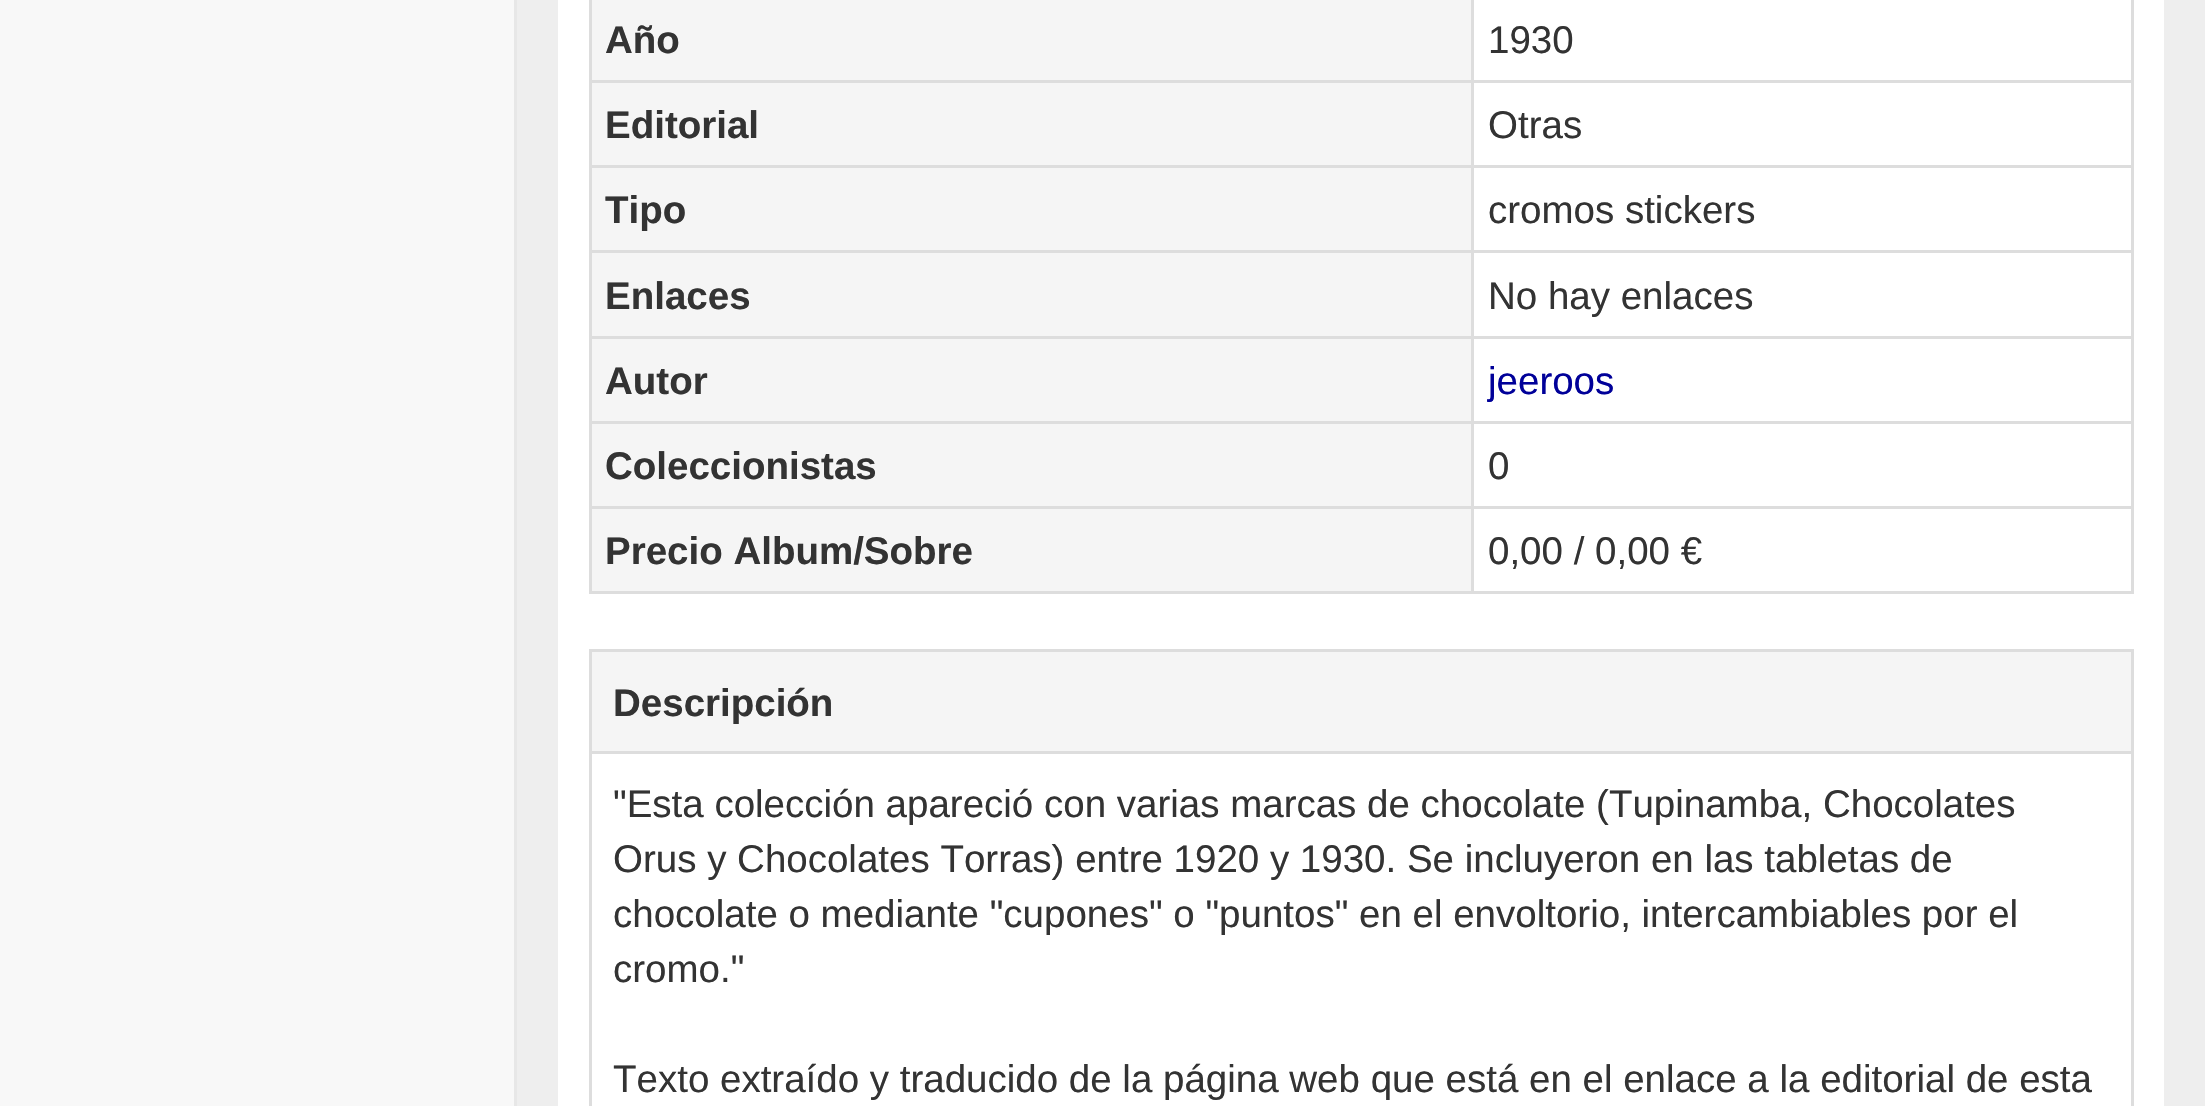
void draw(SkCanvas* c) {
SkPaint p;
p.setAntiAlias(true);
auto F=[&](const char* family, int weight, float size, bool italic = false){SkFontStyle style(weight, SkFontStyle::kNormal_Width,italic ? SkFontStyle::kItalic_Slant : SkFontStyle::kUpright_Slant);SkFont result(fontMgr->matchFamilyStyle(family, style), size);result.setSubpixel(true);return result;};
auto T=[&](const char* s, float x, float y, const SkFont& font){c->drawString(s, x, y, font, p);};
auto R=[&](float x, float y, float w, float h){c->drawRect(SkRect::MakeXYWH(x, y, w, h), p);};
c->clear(0xfff8f8f8);
p.setColor(0xffeeeeee);
R(517,0,1688,1106);
p.setColor(0xffe7e7e7);
R(514,0,3,1106);
p.setColor(0xffffffff);
R(558,0,1606,1106);
p.setColor(0xffdddddd);
R(2131,0,3,594);
R(589,591,1545,3);
R(589,0,3,594);
p.setColor(0xfff5f5f5);
R(592,0,879,80);
auto f1 = F("Liberation Sans",700,38.5);
p.setColor(0xff333333);
T("Año",605,53,f1);
p.setColor(0xffdddddd);
R(1471,80,663,3);
R(1471,165,663,3);
R(1471,250,663,3);
R(1471,336,663,3);
R(1471,421,663,3);
R(1471,506,663,3);
R(1471,506,3,88);
R(589,506,885,3);
R(1471,421,3,88);
R(589,421,885,3);
R(1471,336,3,88);
R(589,336,885,3);
R(1471,250,3,88);
R(589,250,885,3);
R(1471,165,3,88);
R(589,165,885,3);
R(1471,80,3,88);
R(589,80,885,3);
R(1471,0,3,83);
auto f2 = F("Liberation Sans",400,38.5);
p.setColor(0xff333333);
T("1930",1488,53,f2);
p.setColor(0xfff5f5f5);
R(592,83,879,82);
p.setColor(0xff333333);
T("Editorial",605,138,f1);
T("Otras",1488,138,f2);
p.setColor(0xfff5f5f5);
R(592,168,879,82);
p.setColor(0xff333333);
T("Tipo",605,223,f1);
T("cromos stickers",1488,223,f2);
p.setColor(0xfff5f5f5);
R(592,253,879,83);
p.setColor(0xff333333);
T("Enlaces",605,309,f1);
T("No hay enlaces",1488,309,f2);
p.setColor(0xfff5f5f5);
R(592,339,879,82);
p.setColor(0xff333333);
T("Autor",605,394,f1);
p.setColor(0xff000099);
T("jeeroos",1488,394,f2);
p.setColor(0xfff5f5f5);
R(592,424,879,82);
p.setColor(0xff333333);
T("Coleccionistas",605,479,f1);
T("0",1488,479,f2);
p.setColor(0xfff5f5f5);
R(592,509,879,82);
p.setColor(0xff333333);
T("Precio Album/Sobre",605,564,f1);
T("0,00 / 0,00 €",1488,564,f2);
p.setColor(0xffdddddd);
R(589,649,1545,3);
R(2131,649,3,457);
R(589,649,3,457);
p.setColor(0xfff5f5f5);
R(592,652,1539,99);
p.setColor(0xff333333);
T("Descripción",613,716,f1);
p.setColor(0xffdddddd);
R(589,751,1545,3);
p.setColor(0xff333333);
T("\"Esta colección apareció con varias marcas de chocolate (Tupinamba, Chocolates",613,817,f2);
T("Orus y Chocolates Torras) entre 1920 y 1930. Se incluyeron en las tabletas de",613,872,f2);
T("chocolate o mediante \"cupones\" o \"puntos\" en el envoltorio, intercambiables por el",613,927,f2);
T("cromo.\"",613,982,f2);
T("Texto extraído y traducido de la página web que está en el enlace a la editorial de esta",613,1092,f2);
}
